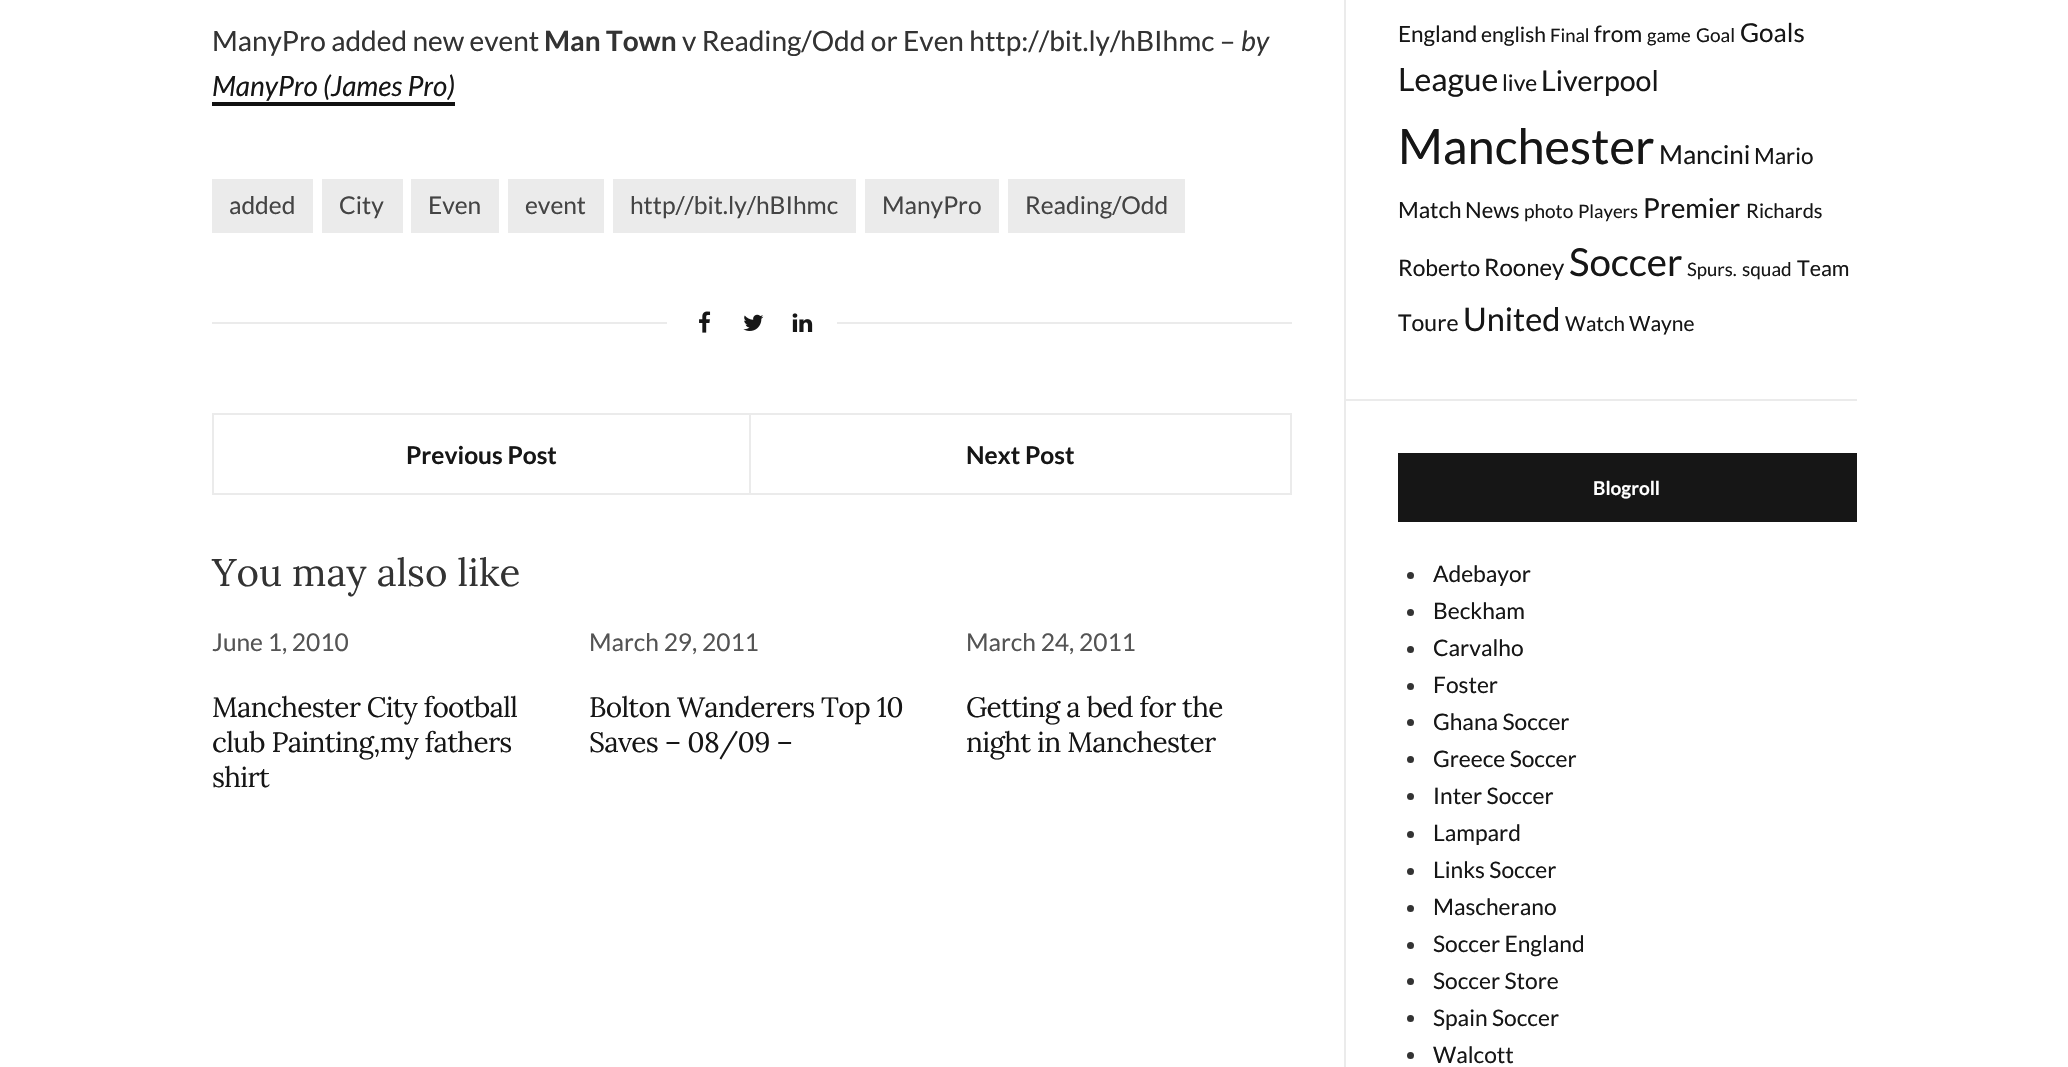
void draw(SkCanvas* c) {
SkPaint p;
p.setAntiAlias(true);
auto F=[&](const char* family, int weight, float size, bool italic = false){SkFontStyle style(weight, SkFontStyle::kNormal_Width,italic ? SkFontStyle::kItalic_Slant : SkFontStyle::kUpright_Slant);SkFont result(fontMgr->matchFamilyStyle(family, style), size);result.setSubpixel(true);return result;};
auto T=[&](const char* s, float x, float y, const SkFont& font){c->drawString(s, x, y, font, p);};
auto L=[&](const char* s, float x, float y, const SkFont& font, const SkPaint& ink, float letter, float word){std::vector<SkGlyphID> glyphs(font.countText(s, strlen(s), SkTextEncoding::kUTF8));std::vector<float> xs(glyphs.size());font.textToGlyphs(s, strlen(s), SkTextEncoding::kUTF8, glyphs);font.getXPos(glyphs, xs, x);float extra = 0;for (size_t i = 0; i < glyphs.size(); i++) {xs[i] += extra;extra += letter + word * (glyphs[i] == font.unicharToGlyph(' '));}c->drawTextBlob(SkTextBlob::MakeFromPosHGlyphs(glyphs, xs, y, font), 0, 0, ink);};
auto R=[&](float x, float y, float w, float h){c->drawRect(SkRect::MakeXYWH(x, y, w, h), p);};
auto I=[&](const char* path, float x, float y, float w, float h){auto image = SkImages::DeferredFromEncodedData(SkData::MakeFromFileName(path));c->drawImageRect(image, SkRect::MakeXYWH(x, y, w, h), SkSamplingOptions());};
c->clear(0xffffffff);
auto f1 = F("Lato",400,28);
p.setColor(0xff333333);
T("ManyPro added new event",212,51,f1);
auto f2 = F("Lato",700,28);
T("Man Town",544,51,f2);
T("v Reading/Odd or Even http://bit.ly/hBIhmc –",682,51,f1);
auto f3 = F("Lato",400,28,true);
T("by",1241,51,f3);
p.setColor(0xff161616);
T("ManyPro (James Pro)",212,96,f3);
p.setColor(0xff111111);
R(212,102,243,4);
p.setColor(0xffebebeb);
R(212,179,101,54);
auto f4 = F("Lato",400,24.5);
p.setColor(0xff444444);
T("added",229,214,f4);
p.setColor(0xffebebeb);
R(322,179,81,54);
p.setColor(0xff444444);
T("City",339,214,f4);
p.setColor(0xffebebeb);
R(411,179,88,54);
p.setColor(0xff444444);
T("Even",428,214,f4);
p.setColor(0xffebebeb);
R(508,179,96,54);
p.setColor(0xff444444);
T("event",525,214,f4);
p.setColor(0xffebebeb);
R(613,179,243,54);
p.setColor(0xff444444);
T("http//bit.ly/hBIhmc",630,214,f4);
p.setColor(0xffebebeb);
R(865,179,134,54);
p.setColor(0xff444444);
T("ManyPro",882,214,f4);
p.setColor(0xffebebeb);
R(1008,179,177,54);
p.setColor(0xff444444);
T("Reading/Odd",1025,214,f4);
p.setColor(0xffebebeb);
R(212,322,1080,2);
p.setColor(0xffffffff);
R(667,322,170,2);
I("1.png",699,311,12,22);
I("2.png",743,314,21,17);
I("3.png",792,313,21,19);
p.setStroke(true);
p.setStrokeWidth(2);
p.setColor(0xffebebeb);
c->drawRect(SkRect::MakeXYWH(213,414,1078,80),p);
p.setStroke(false);
R(749,415,2,79);
auto f5 = F("Lato",700,24.5);
p.setColor(0xff161616);
T("Previous Post",406,464,f5);
T("Next Post",966,464,f5);
auto f6 = F("Lora",400,38.5);
p.setColor(0xff333333);
T("You may also like",212,586,f6);
p.setColor(0xff545454);
T("June 1, 2010",212,651,f4);
auto f7 = F("Lora",400,28);
p.setColor(0xff161616);
L("Manchester City football",212,717,f7,p,-.7,0);
L("club Painting,my fathers",212,752,f7,p,-.7,0);
L("shirt",212,787,f7,p,-.7,0);
p.setColor(0xff545454);
T("March 29, 2011",589,651,f4);
p.setColor(0xff161616);
L("Bolton Wanderers Top 10",589,717,f7,p,-.7,0);
L("Saves – 08/09 –",589,752,f7,p,-.7,0);
p.setColor(0xff545454);
T("March 24, 2011",966,651,f4);
p.setColor(0xff161616);
L("Getting a bed for the",966,717,f7,p,-.7,0);
L("night in Manchester",966,752,f7,p,-.7,0);
p.setColor(0xffebebeb);
R(1344,0,2,1067);
R(1346,399,511,2);
auto f8 = F("Lato",400,22.5);
p.setColor(0xff161616);
T("England",1398,42,f8);
auto f9 = F("Lato",400,21);
T("english",1481,42,f9);
auto f10 = F("Lato",400,18.5);
T("Final",1550,42,f10);
auto f11 = F("Lato",400,22.75);
T("from",1594,42,f11);
T("game",1647,42,f10);
auto f12 = F("Lato",400,19);
T("Goal",1696,42,f12);
auto f13 = F("Lato",400,26);
T("Goals",1740,42,f13);
auto f14 = F("Lato",400,32);
T("League",1398,91,f14);
T("live",1502,91,f11);
auto f15 = F("Lato",400,28.5);
T("Liverpool",1541,91,f15);
auto f16 = F("Lato",400,48.75);
T("Manchester",1398,164,f16);
T("Mancini",1659,164,f13);
T("Mario",1754,164,f8);
T("Match",1398,218,f8);
auto f17 = F("Lato",400,22);
T("News",1465,218,f17);
T("photo",1524,218,f12);
T("Players",1578,218,f10);
auto f18 = F("Lato",400,27.5);
T("Premier",1643,218,f18);
auto f19 = F("Lato",400,20);
T("Richards",1746,218,f19);
T("Roberto",1398,276,f11);
auto f20 = F("Lato",400,24);
T("Rooney",1484,276,f20);
auto f21 = F("Lato",400,38.5);
T("Soccer",1569,276,f21);
T("Spurs.",1687,276,f10);
T("squad",1742,276,f12);
auto f22 = F("Lato",400,21.5);
T("Team",1797,276,f22);
auto f23 = F("Lato",400,23);
T("Toure",1398,331,f23);
auto f24 = F("Lato",400,32.5);
T("United",1463,331,f24);
auto f25 = F("Lato",400,20.5);
T("Watch",1565,331,f25);
T("Wayne",1629,331,f9);
R(1398,453,459,69);
auto f26 = F("Lato",700,19);
p.setColor(0xffffffff);
T("Blogroll",1593,495,f26);
p.setColor(0xff333333);
c->drawCircle(1410.5,575.5,3.5,p);
p.setColor(0xff161616);
T("Adebayor",1433,582,f11);
p.setColor(0xff333333);
c->drawCircle(1410.5,612.5,3.5,p);
p.setColor(0xff161616);
T("Beckham",1433,619,f11);
p.setColor(0xff333333);
c->drawCircle(1410.5,649.5,3.5,p);
p.setColor(0xff161616);
T("Carvalho",1433,656,f11);
p.setColor(0xff333333);
c->drawCircle(1410.5,686.5,3.5,p);
p.setColor(0xff161616);
T("Foster",1433,693,f11);
p.setColor(0xff333333);
c->drawCircle(1410.5,722.5,3.5,p);
p.setColor(0xff161616);
T("Ghana Soccer",1433,730,f11);
p.setColor(0xff333333);
c->drawCircle(1410.5,759.5,3.5,p);
p.setColor(0xff161616);
T("Greece Soccer",1433,767,f11);
p.setColor(0xff333333);
c->drawCircle(1410.5,796.5,3.5,p);
p.setColor(0xff161616);
T("Inter Soccer",1433,804,f11);
p.setColor(0xff333333);
c->drawCircle(1410.5,834.5,3.5,p);
p.setColor(0xff161616);
T("Lampard",1433,841,f11);
p.setColor(0xff333333);
c->drawCircle(1410.5,871.5,3.5,p);
p.setColor(0xff161616);
T("Links Soccer",1433,878,f11);
p.setColor(0xff333333);
c->drawCircle(1410.5,908.5,3.5,p);
p.setColor(0xff161616);
T("Mascherano",1433,915,f11);
p.setColor(0xff333333);
c->drawCircle(1410.5,945.5,3.5,p);
p.setColor(0xff161616);
T("Soccer England",1433,952,f11);
p.setColor(0xff333333);
c->drawCircle(1410.5,981.5,3.5,p);
p.setColor(0xff161616);
T("Soccer Store",1433,989,f11);
p.setColor(0xff333333);
c->drawCircle(1410.5,1018.5,3.5,p);
p.setColor(0xff161616);
T("Spain Soccer",1433,1026,f11);
p.setColor(0xff333333);
c->drawCircle(1410.5,1055.5,3.5,p);
p.setColor(0xff161616);
T("Walcott",1433,1063,f11);
}
